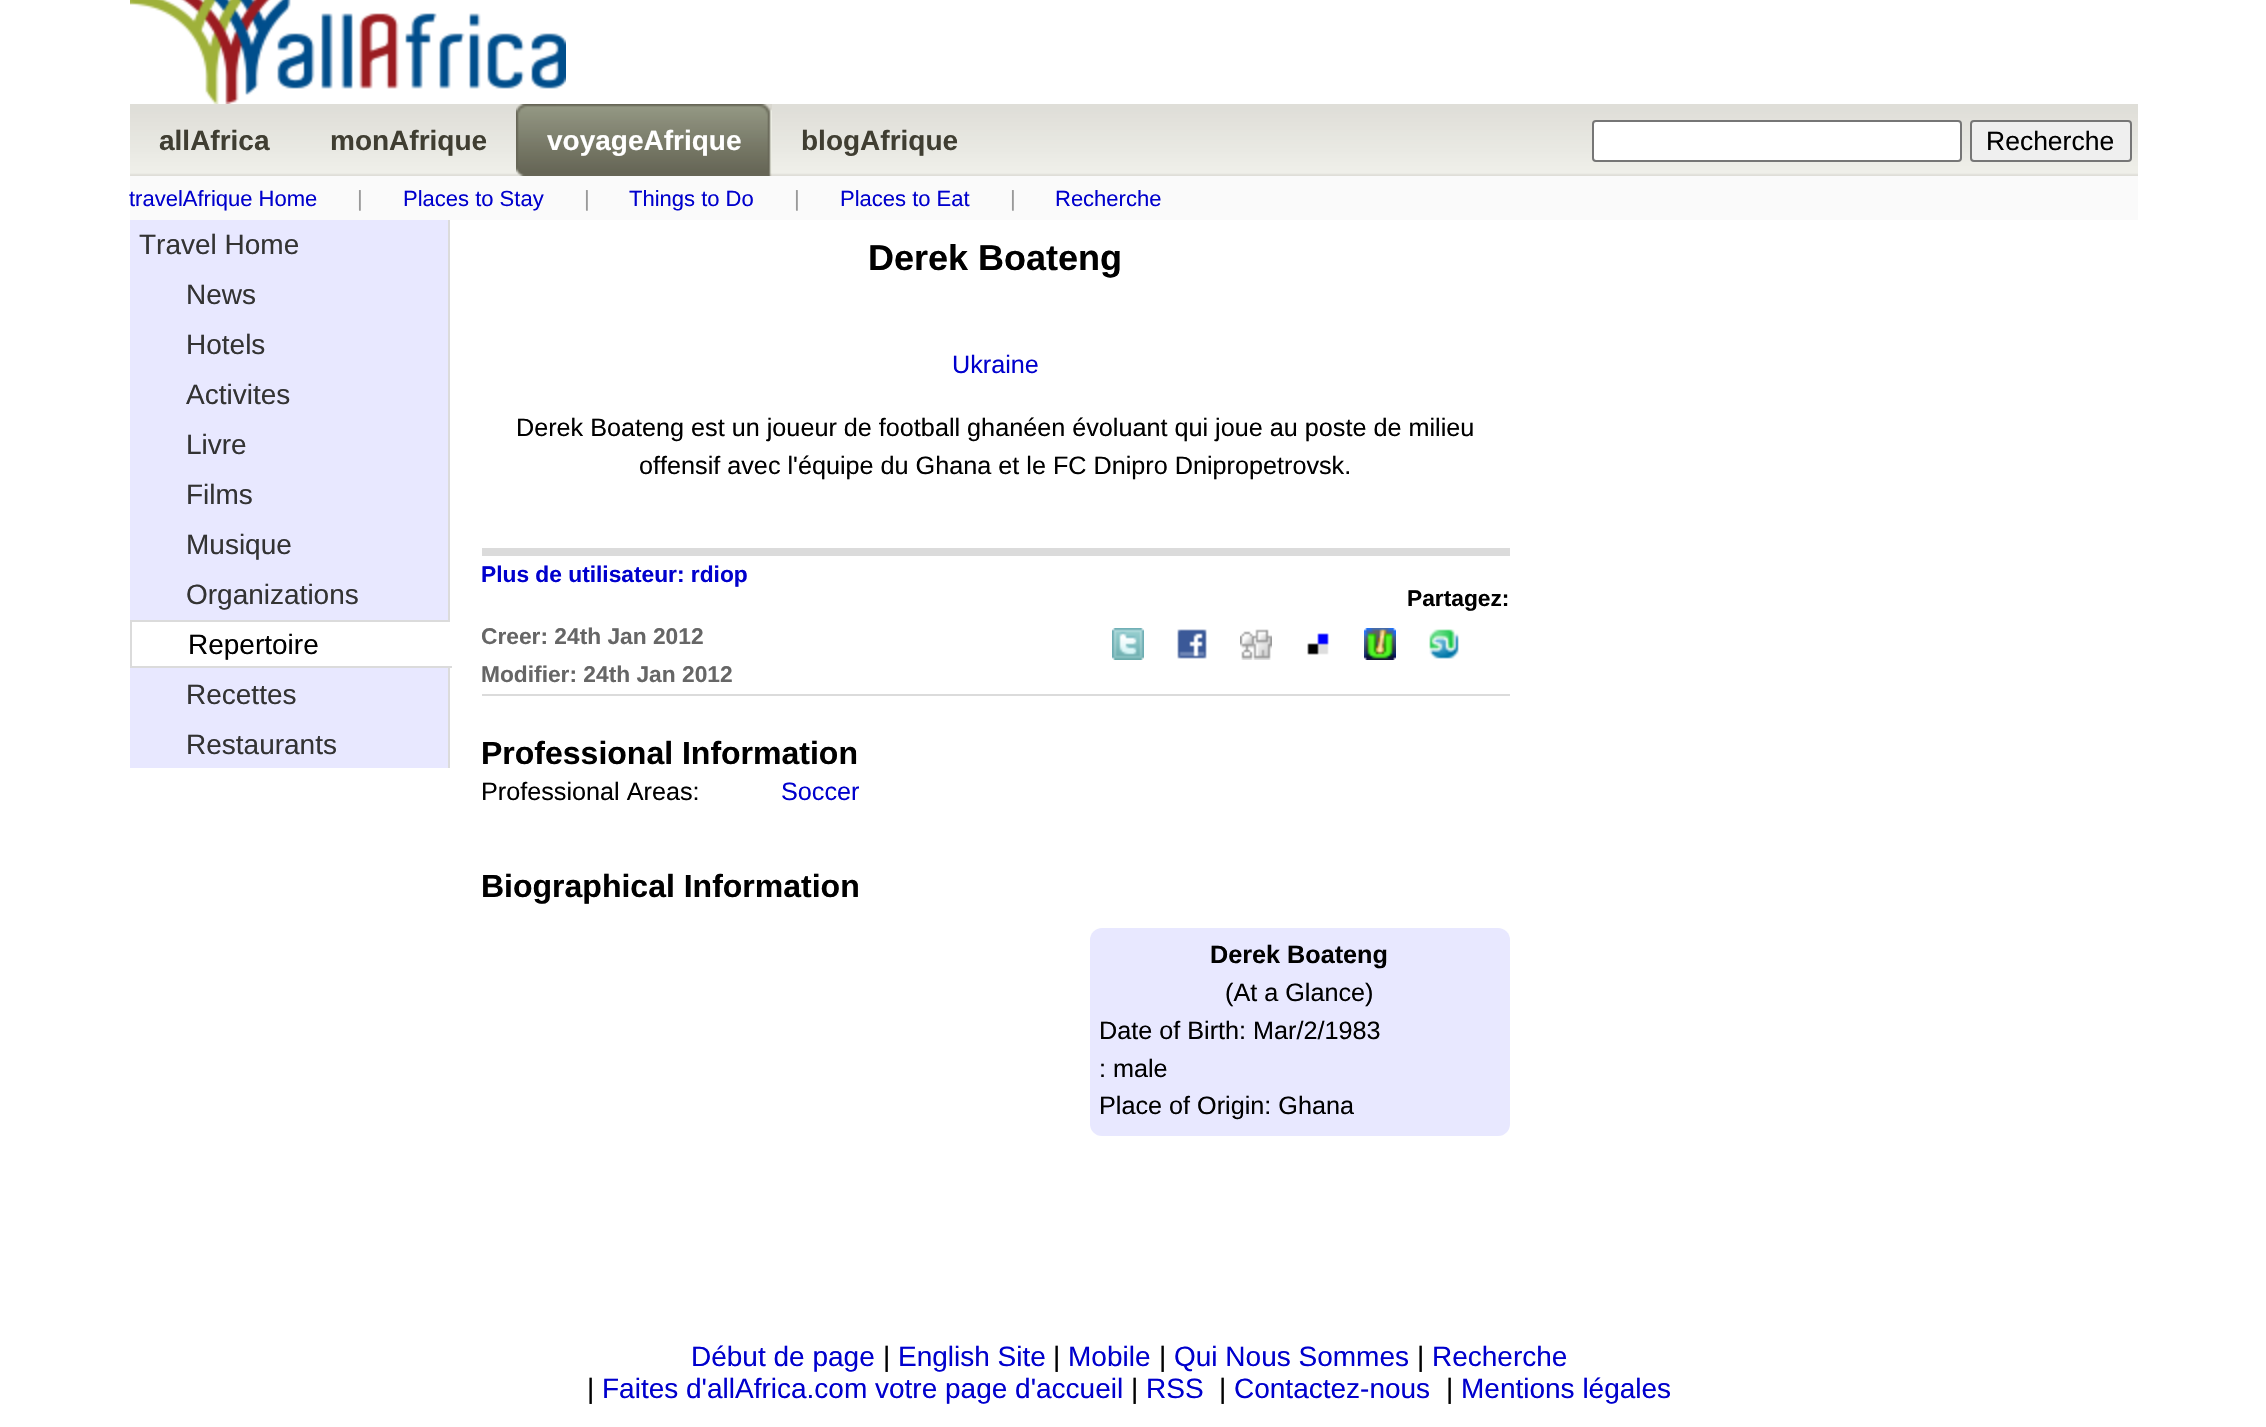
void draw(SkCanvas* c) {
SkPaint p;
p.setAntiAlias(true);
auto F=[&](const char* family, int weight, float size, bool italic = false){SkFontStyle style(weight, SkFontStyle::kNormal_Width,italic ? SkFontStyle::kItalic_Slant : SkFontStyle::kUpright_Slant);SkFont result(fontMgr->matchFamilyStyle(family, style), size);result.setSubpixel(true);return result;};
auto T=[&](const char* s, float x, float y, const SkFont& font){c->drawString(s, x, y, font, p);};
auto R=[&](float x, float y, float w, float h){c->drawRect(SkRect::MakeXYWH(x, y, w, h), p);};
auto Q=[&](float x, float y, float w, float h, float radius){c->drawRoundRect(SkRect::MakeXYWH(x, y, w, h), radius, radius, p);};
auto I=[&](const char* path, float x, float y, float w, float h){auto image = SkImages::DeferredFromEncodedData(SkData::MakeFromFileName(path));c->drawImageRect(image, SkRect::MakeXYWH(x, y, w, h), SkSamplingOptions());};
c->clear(0xffffffff);
I("1.png",130,0,436,104);
I("2.png",130,104,2008,72);
auto f1 = F("Liberation Sans",700,28);
p.setColor(0xff403e32);
T("allAfrica",159,150,f1);
T("monAfrique",330,150,f1);
I("3.png",516,104,40,72);
I("4.png",556,104,216,72);
p.setColor(0xffffffff);
T("voyageAfrique",547,150,f1);
p.setColor(0xff403e32);
T("blogAfrique",801,150,f1);
p.setColor(0xffffffff);
c->drawRoundRect(SkRect::MakeXYWH(1593,121,368,40),3,3,p);
p.setStroke(true);
p.setStrokeWidth(2);
p.setColor(0xff767676);
c->drawRoundRect(SkRect::MakeXYWH(1593,121,368,40),3,3,p);
p.setStroke(false);
p.setColor(0xffefefef);
c->drawRoundRect(SkRect::MakeXYWH(1971,121,160,40),3,3,p);
p.setStroke(true);
p.setColor(0xff767676);
c->drawRoundRect(SkRect::MakeXYWH(1971,121,160,40),3,3,p);
auto f2 = F("Liberation Sans",400,26.5);
p.setStroke(false);
p.setColor(0xff000000);
T("Recherche",1986,150,f2);
p.setColor(0xfffafafa);
R(130,176,2008,44);
auto f3 = F("Liberation Sans",400,22);
p.setColor(0xff0000cd);
T("travelAfrique Home",129,206,f3);
p.setColor(0xff999999);
T("|",357,206,f3);
p.setColor(0xff0000cd);
T("Places to Stay",403,206,f3);
p.setColor(0xff999999);
T("|",584,206,f3);
p.setColor(0xff0000cd);
T("Things to Do",629,206,f3);
p.setColor(0xff999999);
T("|",794,206,f3);
p.setColor(0xff0000cd);
T("Places to Eat",840,206,f3);
p.setColor(0xff999999);
T("|",1010,206,f3);
p.setColor(0xff0000cd);
T("Recherche",1055,206,f3);
p.setColor(0xffe8e8ff);
R(130,220,318,548);
p.setColor(0xffdbdbdb);
R(448,220,2,548);
auto f4 = F("Liberation Sans",400,28);
p.setColor(0xff333333);
T("Travel Home",139,254,f4);
T("News",186,304,f4);
T("Hotels",186,354,f4);
T("Activites",186,404,f4);
T("Livre",186,454,f4);
T("Films",186,504,f4);
T("Musique",186,554,f4);
T("Organizations",186,604,f4);
p.setColor(0xffffffff);
R(132,622,318,44);
p.setColor(0xffdbdbdb);
R(130,620,322,2);
p.setColor(0xffffffff);
R(450,620,2,2);
p.setColor(0xffdbdbdb);
R(130,666,322,2);
R(130,620,2,48);
p.setColor(0xff000000);
T("Repertoire",188,654,f4);
p.setColor(0xff333333);
T("Recettes",186,704,f4);
T("Restaurants",186,754,f4);
auto f5 = F("Liberation Sans",700,36);
p.setColor(0xff000000);
T("Derek Boateng",868,270,f5);
auto f6 = F("Liberation Sans",400,25.2);
p.setColor(0xff0000cd);
T("Ukraine",952,373,f6);
p.setColor(0xff000000);
T("Derek Boateng est un joueur de football ghanéen évoluant qui joue au poste de milieu",516,436,f6);
T("offensif avec l'équipe du Ghana et le FC Dnipro Dnipropetrovsk.",639,474,f6);
p.setColor(0xffdbdbdb);
R(482,548,1028,8);
R(482,694,1028,2);
auto f7 = F("Liberation Sans",700,22.75);
p.setColor(0xff0000cd);
T("Plus de utilisateur: rdiop",481,582,f7);
p.setColor(0xff666666);
T("Creer: 24th Jan 2012",481,644,f7);
T("Modifier: 24th Jan 2012",481,682,f7);
p.setColor(0xff000000);
T("Partagez:",1407,606,f7);
I("5.png",1112,628,32,32);
I("6.png",1177,629,30,30);
I("7.png",1240,629,32,31);
I("8.png",1307,633,22,22);
I("9.png",1364,628,32,32);
I("10.png",1429,629,30,30);
auto f8 = F("Liberation Sans",700,32);
T("Professional Information",481,764,f8);
T("Professional Areas:",481,800,f6);
p.setColor(0xff0000cd);
T("Soccer",781,800,f6);
p.setColor(0xff000000);
T("Biographical Information",481,897,f8);
p.setColor(0xffe8e8ff);
Q(1090,928,420,208,12);
auto f9 = F("Liberation Sans",700,25.2);
p.setColor(0xff000000);
T("Derek Boateng",1210,963,f9);
T("(At a Glance)",1225,1001,f6);
T("Date of Birth: Mar/2/1983",1099,1039,f6);
T(": male",1099,1077,f6);
T("Place of Origin: Ghana",1099,1114,f6);
p.setColor(0xff0000cd);
T("Début de page",691,1366,f4);
p.setColor(0xff000000);
T("|",883,1366,f4);
p.setColor(0xff0000cd);
T("English Site",898,1366,f4);
p.setColor(0xff000000);
T("|",1053,1366,f4);
p.setColor(0xff0000cd);
T("Mobile",1068,1366,f4);
p.setColor(0xff000000);
T("|",1159,1366,f4);
p.setColor(0xff0000cd);
T("Qui Nous Sommes",1174,1366,f4);
p.setColor(0xff000000);
T("|",1417,1366,f4);
p.setColor(0xff0000cd);
T("Recherche",1432,1366,f4);
p.setColor(0xff000000);
T("|",587,1398,f4);
p.setColor(0xff0000cd);
T("Faites d'allAfrica.com votre page d'accueil",602,1398,f4);
p.setColor(0xff000000);
T("|",1131,1398,f4);
p.setColor(0xff0000cd);
T("RSS",1146,1398,f4);
p.setColor(0xff000000);
T("|",1219,1398,f4);
p.setColor(0xff0000cd);
T("Contactez-nous",1234,1398,f4);
p.setColor(0xff000000);
T("|",1446,1398,f4);
p.setColor(0xff0000cd);
T("Mentions légales",1461,1398,f4);
}
